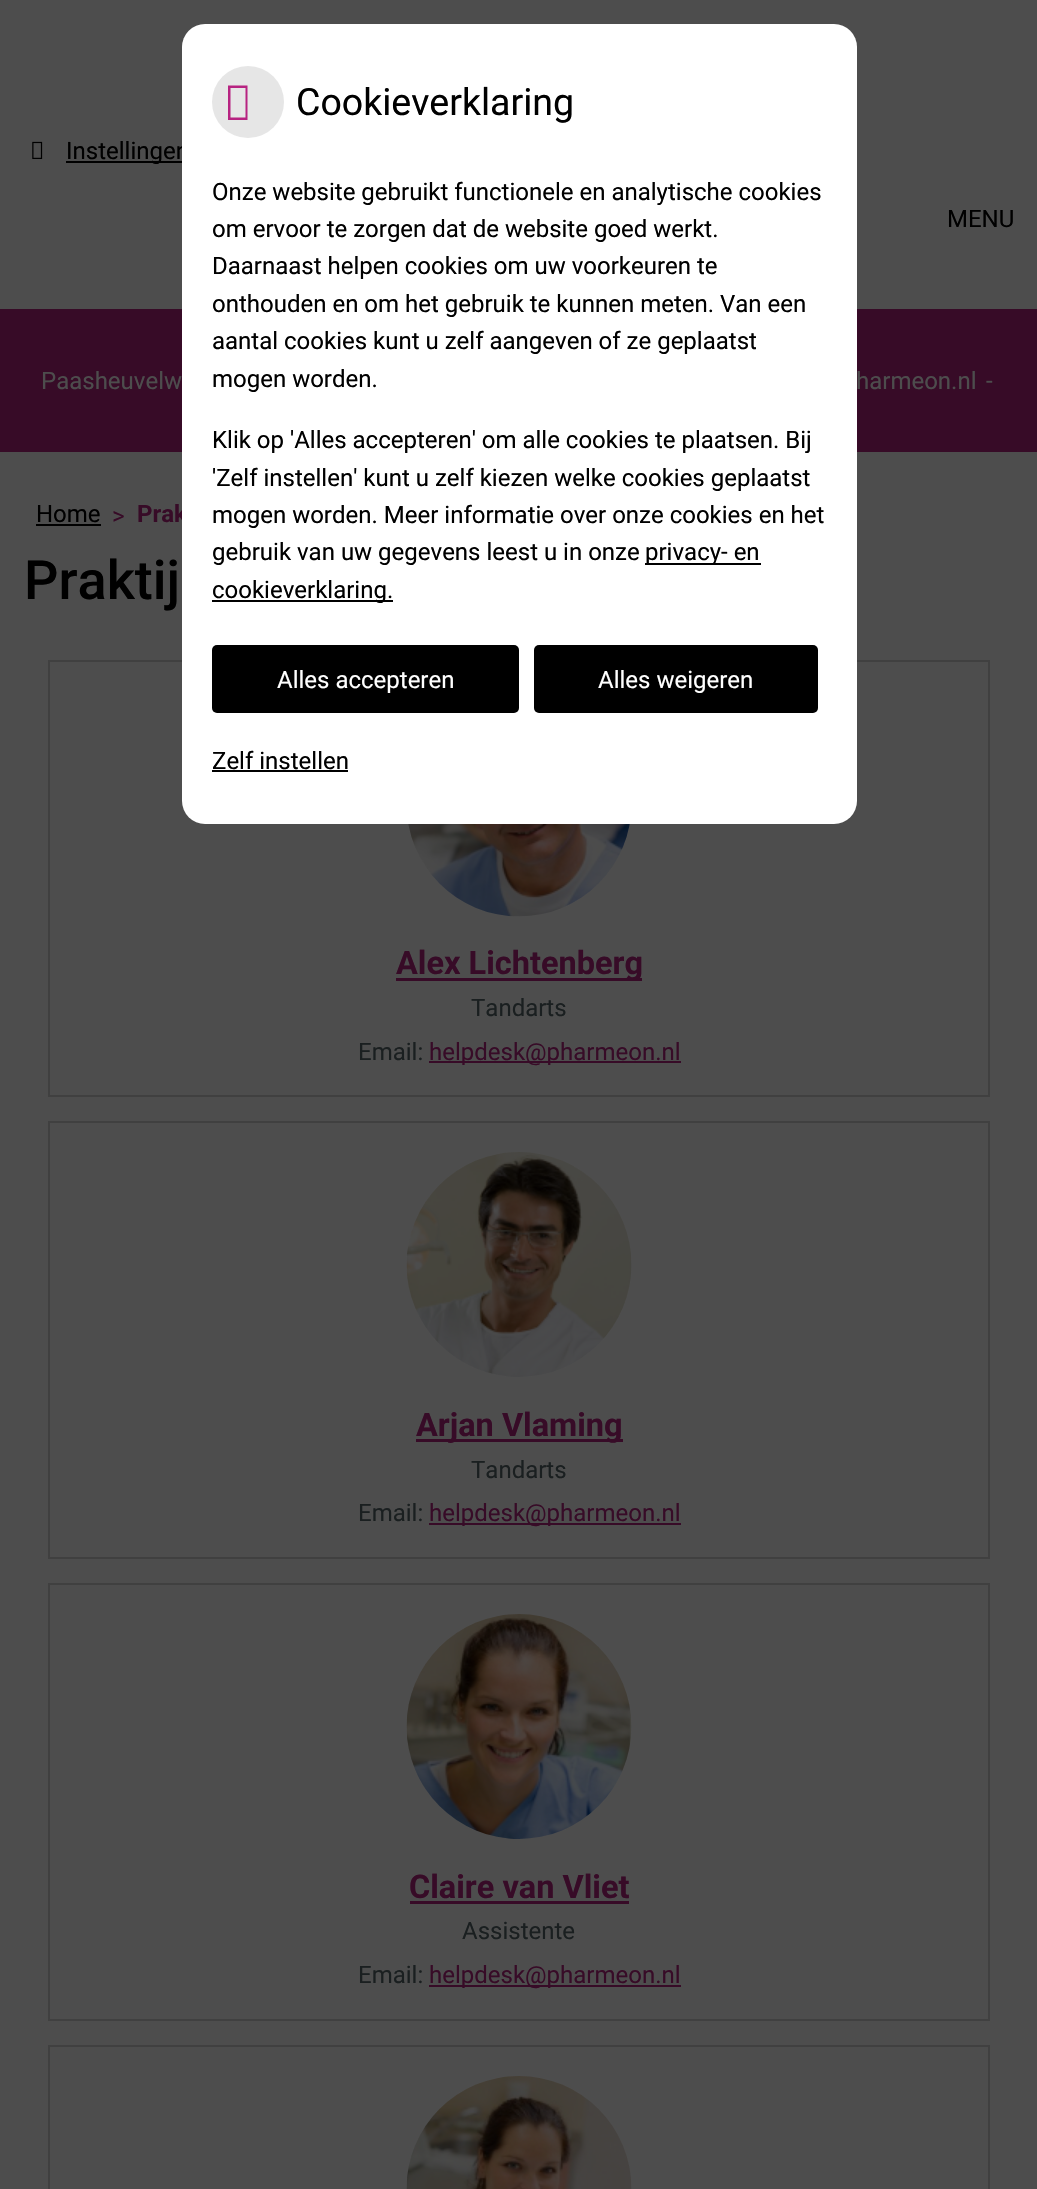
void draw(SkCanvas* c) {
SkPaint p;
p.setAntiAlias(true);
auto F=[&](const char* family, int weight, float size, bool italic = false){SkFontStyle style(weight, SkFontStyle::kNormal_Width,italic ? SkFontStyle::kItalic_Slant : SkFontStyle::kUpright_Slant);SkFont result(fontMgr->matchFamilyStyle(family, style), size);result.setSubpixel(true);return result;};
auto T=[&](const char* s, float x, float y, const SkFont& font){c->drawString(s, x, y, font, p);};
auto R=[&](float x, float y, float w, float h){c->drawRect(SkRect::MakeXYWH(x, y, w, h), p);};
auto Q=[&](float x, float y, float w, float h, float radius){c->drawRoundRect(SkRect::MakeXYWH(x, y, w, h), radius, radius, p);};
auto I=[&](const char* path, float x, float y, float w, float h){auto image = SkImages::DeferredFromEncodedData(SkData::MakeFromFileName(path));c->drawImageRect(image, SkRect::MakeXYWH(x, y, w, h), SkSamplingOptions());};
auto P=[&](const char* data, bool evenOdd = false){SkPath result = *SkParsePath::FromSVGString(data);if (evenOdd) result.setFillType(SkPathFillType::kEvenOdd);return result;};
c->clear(0xff4d4d4d);
I("1.png",32,141,11,18);
p.setColor(0xff000000);
R(66,161,123,2);
auto f1 = F("Roboto",400,24);
T("Instellingen",66,159,f1);
p.setColor(0xff370b27);
R(0,309,1037,143);
auto f2 = F("Roboto",700,24);
T("Prak",137,522,f2);
p.setStroke(true);
p.setStrokeWidth(2);
p.setColor(0xff404040);
c->drawRect(SkRect::MakeXYWH(49,661,940,435),p);
p.setStroke(false);
p.setColor(0xffffffff);
Q(182,24,675,800,23);
p.setColor(0xffe6e6e6);
c->drawCircle(248,102,36,p);
p.setColor(0xffb72381);
c->drawPath(P("M228 120v-34.5h19.5v34.5zm2.5-2.5h15v-29.5h-15z"),p);
auto f3 = F("Roboto",400,37.5);
p.setColor(0xff000000);
T("Cookieverklaring",296,115,f3);
T("Onze website gebruikt functionele en analytische cookies",212,200,f1);
T("om ervoor te zorgen dat de website goed werkt.",212,237,f1);
T("Daarnaast helpen cookies om uw voorkeuren te",212,274,f1);
T("onthouden en om het gebruik te kunnen meten. Van een",212,312,f1);
T("aantal cookies kunt u zelf aangeven of ze geplaatst",212,349,f1);
T("mogen worden.",212,387,f1);
T("Klik op 'Alles accepteren' om alle cookies te plaatsen. Bij",212,448,f1);
T("'Zelf instellen' kunt u zelf kiezen welke cookies geplaatst",212,486,f1);
T("mogen worden. Meer informatie over onze cookies en het",212,523,f1);
T("gebruik van uw gegevens leest u in onze",212,560,f1);
R(645,563,116,2);
T("privacy- en",645,560,f1);
R(212,600,181,2);
T("cookieverklaring.",212,598,f1);
Q(212,645,307,68,5);
p.setColor(0xffffffff);
T("Alles accepteren",277,688,f1);
p.setColor(0xff000000);
Q(534,645,284,68,5);
p.setColor(0xffffffff);
T("Alles weigeren",598,688,f1);
p.setColor(0xff000000);
T("Zelf instellen",212,769,f1);
R(212,770,136,2);
T("MENU",947,227,f1);
p.setColor(0xff4d4d4d);
T("Paasheuvelw",41,389,f1);
T("harmeon.nl",856,389,f1);
T("-",986,389,f1);
p.setColor(0xff000000);
T("Home",36,522,f1);
R(36,524,65,2);
p.setColor(0xff370b27);
T(">",112,524,f1);
auto f4 = F("Roboto",500,54);
p.setColor(0xff000000);
T("Praktij",24,599,f4);
I("2.png",408,824,222,93);
p.setColor(0xff370b27);
R(396,978,246,3);
auto f5 = F("Roboto",700,32.5);
T("Alex Lichtenberg",396,974,f5);
p.setColor(0xff1a1f20);
T("Tandarts",471,1016,f1);
T("Email:",358,1060,f1);
p.setColor(0xff370b27);
R(429,1061,252,2);
T("helpdesk@pharmeon.nl",429,1060,f1);
p.setStroke(true);
p.setColor(0xff404040);
c->drawRect(SkRect::MakeXYWH(49,1122,940,436),p);
I("3.png",406,1152,226,225);
p.setStroke(false);
p.setColor(0xff370b27);
R(416,1439,207,3);
T("Arjan Vlaming",416,1436,f5);
p.setColor(0xff1a1f20);
T("Tandarts",471,1478,f1);
T("Email:",358,1521,f1);
p.setColor(0xff370b27);
R(429,1523,252,2);
T("helpdesk@pharmeon.nl",429,1521,f1);
p.setStroke(true);
p.setColor(0xff404040);
c->drawRect(SkRect::MakeXYWH(49,1584,940,436),p);
I("4.png",406,1614,226,225);
p.setStroke(false);
p.setColor(0xff370b27);
T("Claire van Vliet",409,1898,f5);
R(410,1901,219,3);
p.setColor(0xff1a1f20);
T("Assistente",462,1939,f1);
T("Email:",358,1983,f1);
p.setColor(0xff370b27);
R(429,1985,252,2);
T("helpdesk@pharmeon.nl",429,1983,f1);
p.setStroke(true);
p.setColor(0xff404040);
c->drawRect(SkRect::MakeXYWH(49,2046,940,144),p);
I("5.png",406,2076,226,113);
}
